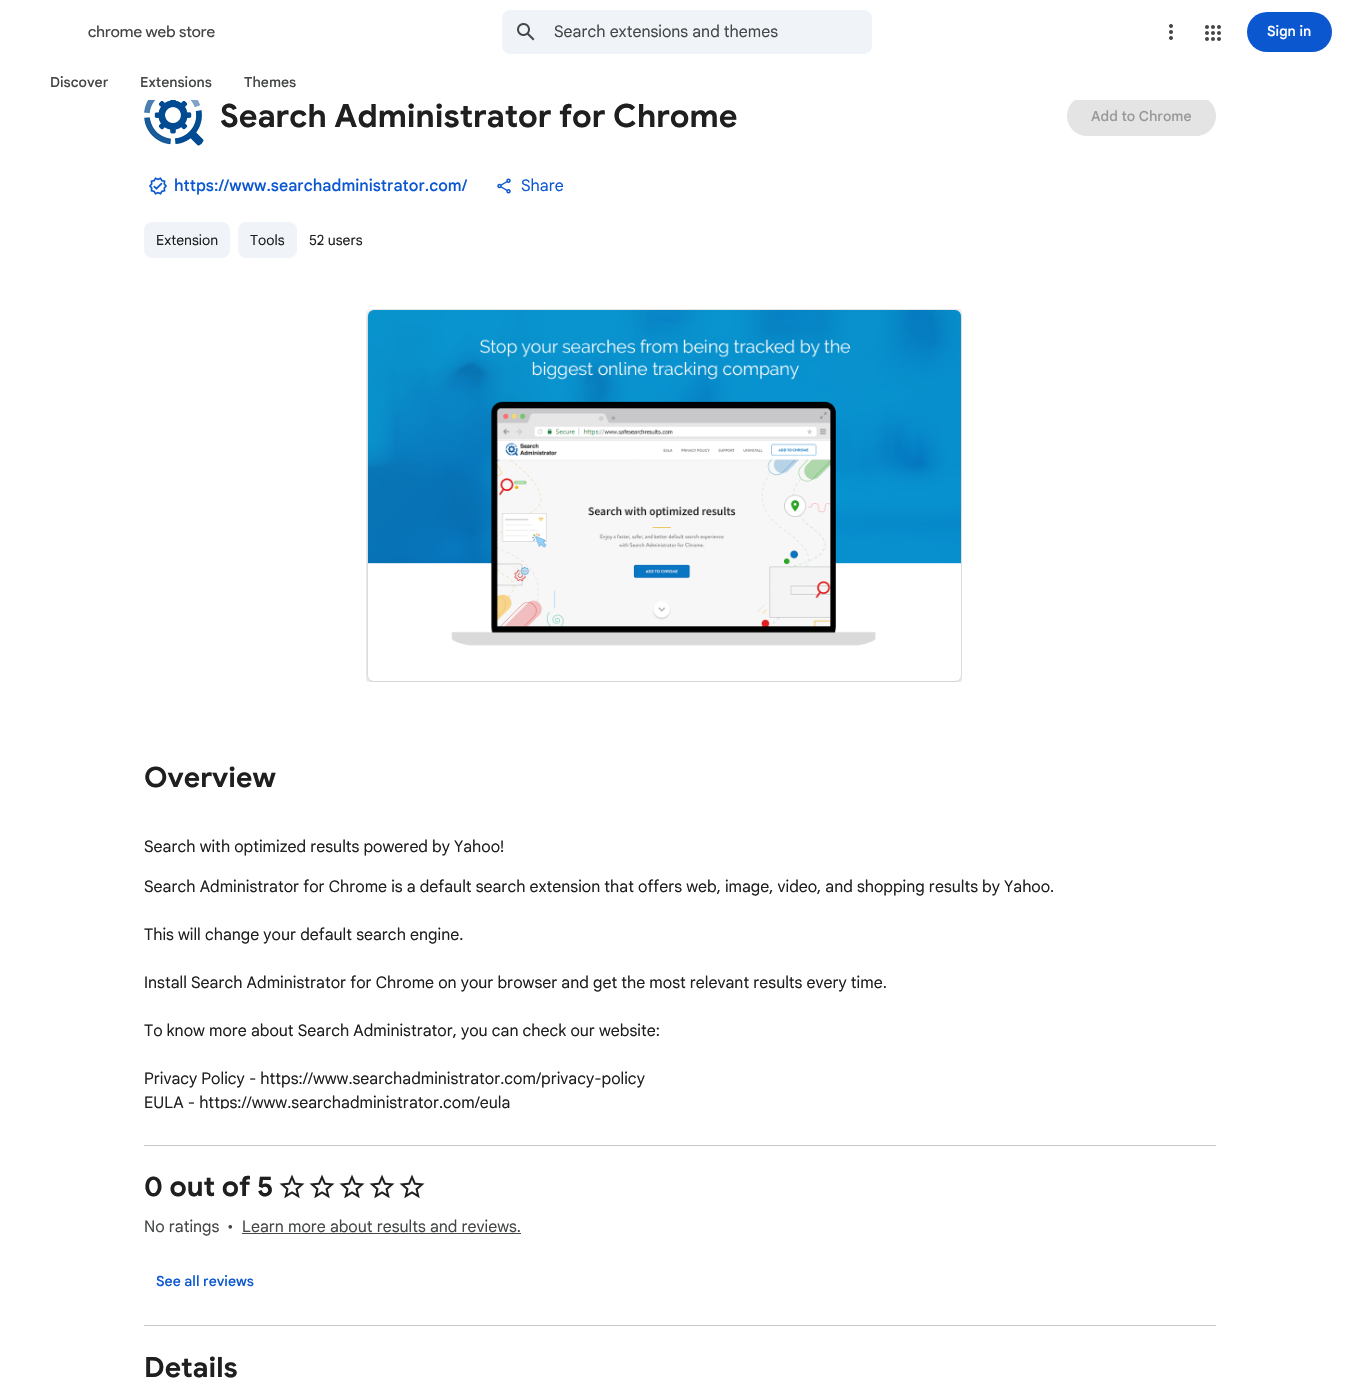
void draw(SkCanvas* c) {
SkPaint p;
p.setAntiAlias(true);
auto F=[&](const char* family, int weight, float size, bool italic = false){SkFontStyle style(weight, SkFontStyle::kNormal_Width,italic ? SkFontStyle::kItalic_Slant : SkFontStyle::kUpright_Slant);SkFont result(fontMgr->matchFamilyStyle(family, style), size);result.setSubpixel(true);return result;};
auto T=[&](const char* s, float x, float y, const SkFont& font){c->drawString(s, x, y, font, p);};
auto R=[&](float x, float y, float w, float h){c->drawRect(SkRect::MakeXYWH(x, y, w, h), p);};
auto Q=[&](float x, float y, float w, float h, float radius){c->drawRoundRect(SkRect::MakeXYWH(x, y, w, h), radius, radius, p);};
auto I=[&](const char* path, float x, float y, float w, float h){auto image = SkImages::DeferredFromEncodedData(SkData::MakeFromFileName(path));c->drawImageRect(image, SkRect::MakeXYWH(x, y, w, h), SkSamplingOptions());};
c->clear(0xffffffff);
p.setColor(0xffe4e4e4);
Q(1067,96,149,40,20);
p.setColor(0xffffffff);
R(1075,96,133,4);
I("1.png",61,21,6,1);
auto f1 = F("Product Sans",400,16);
p.setColor(0xff444746);
T("chrome web store",88,37,f1);
p.setColor(0xfff0f4f9);
Q(502,10,370,44,8);
I("2.png",517,23,18,18);
auto f2 = F("Google Sans",400,16);
p.setColor(0xff444746);
T("Search extensions and themes",554,37,f2);
I("3.png",1169,24,4,16);
I("4.png",1205,25,16,16);
p.setColor(0xff0b57d0);
Q(1247,12,85,40,20);
auto f3 = F("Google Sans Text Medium",500,14);
p.setColor(0xffffffff);
T("Sign in",1267,36,f3);
p.setColor(0xff444746);
T("Discover",50,87,f3);
T("Extensions",140,87,f3);
T("Themes",244,87,f3);
I("5.png",144,100,60,46);
auto f4 = F("Google Sans",700,32);
p.setColor(0xff1f1f1f);
T("Search Administrator for Chrome",220,127,f4);
p.setColor(0xff999999);
T("Add to Chrome",1091,121,f3);
I("6.png",149,177,18,18);
auto f5 = F("Google Sans",500,16);
p.setColor(0xff0b57d0);
T("https://www.searchadministrator.com/",174,191,f5);
I("7.png",497,178,14,16);
auto f6 = F("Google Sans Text",400,16);
T("Share",521,191,f6);
p.setColor(0xfff0f4f9);
Q(144,222,86,36,8);
auto f7 = F("Google Sans",400,14);
p.setColor(0xff1f1f1f);
T("Extension",156,245,f7);
p.setColor(0xfff0f4f9);
Q(238,222,59,36,8);
p.setColor(0xff1f1f1f);
T("Tools",250,245,f7);
T("52 users",309,245,f7);
I("8.png",366,309,596,373);
p.setColor(0xffc4c7c5);
R(144,1145,1072,1);
auto f8 = F("Google Sans",700,28);
p.setColor(0xff1f1f1f);
T("Overview",144,787,f8);
T("Search with optimized results powered by Yahoo!",144,852,f2);
T("Search Administrator for Chrome is a default search extension that offers web, image, video, and shopping results by Yahoo.",144,892,f2);
T("This will change your default search engine.",144,940,f2);
T("Install Search Administrator for Chrome on your browser and get the most relevant results every time.",144,988,f2);
T("To know more about Search Administrator, you can check our website:",144,1036,f2);
T("Privacy Policy - https://www.searchadministrator.com/privacy-policy",144,1084,f2);
c->save();
c->clipRect(SkRect::MakeXYWH(144,819,1072,290));
T("EULA - https://www.searchadministrator.com/eula",144,1108,f2);
c->restore();
p.setColor(0xffc4c7c5);
R(144,1325,1072,1);
p.setColor(0xff1f1f1f);
T("0 out of 5",144,1196,f8);
I("9.png",279,1174,26,25);
I("9.png",309,1174,26,25);
I("9.png",339,1174,26,25);
I("9.png",369,1174,26,25);
I("9.png",399,1174,26,25);
p.setColor(0xff444746);
T("No ratings",144,1232,f2);
T("•",227,1232,f2);
T("Learn more about results and reviews.",242,1232,f2);
R(242,1233,279,1);
p.setColor(0xff0b57d0);
T("See all reviews",156,1286,f3);
p.setColor(0xff1f1f1f);
T("Details",144,1377,f8);
}
